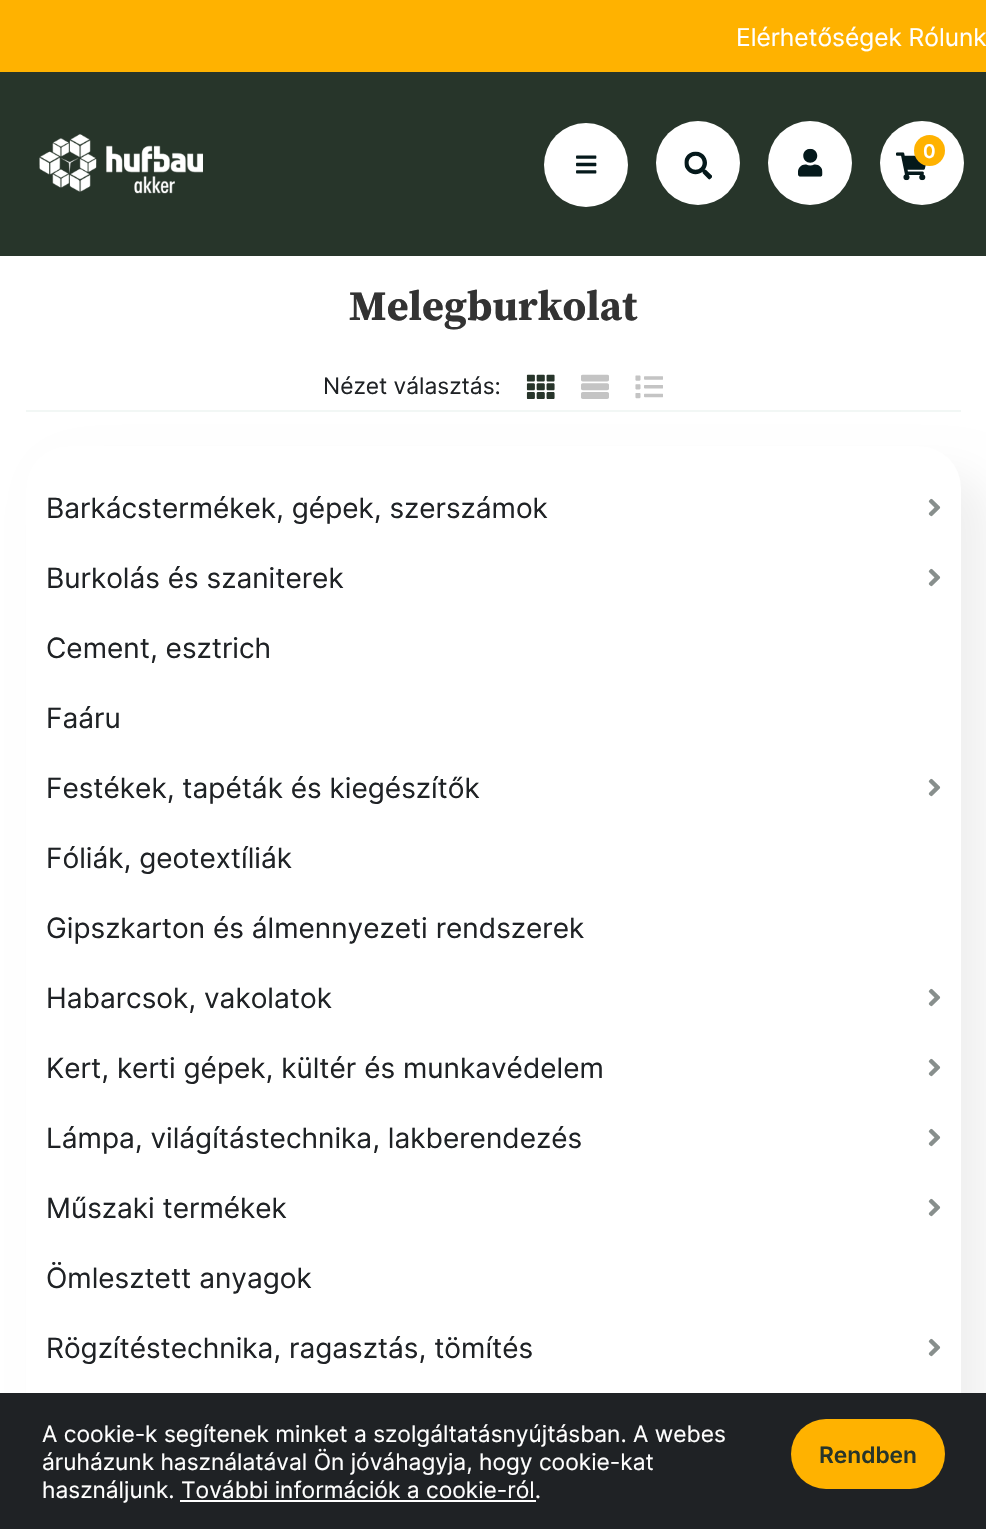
void draw(SkCanvas* c) {
SkPaint p;
p.setAntiAlias(true);
auto F=[&](const char* family, int weight, float size, bool italic = false){SkFontStyle style(weight, SkFontStyle::kNormal_Width,italic ? SkFontStyle::kItalic_Slant : SkFontStyle::kUpright_Slant);SkFont result(fontMgr->matchFamilyStyle(family, style), size);result.setSubpixel(true);return result;};
auto T=[&](const char* s, float x, float y, const SkFont& font){c->drawString(s, x, y, font, p);};
auto R=[&](float x, float y, float w, float h){c->drawRect(SkRect::MakeXYWH(x, y, w, h), p);};
auto Q=[&](float x, float y, float w, float h, float radius){c->drawRoundRect(SkRect::MakeXYWH(x, y, w, h), radius, radius, p);};
auto I=[&](const char* path, float x, float y, float w, float h){auto image = SkImages::DeferredFromEncodedData(SkData::MakeFromFileName(path));c->drawImageRect(image, SkRect::MakeXYWH(x, y, w, h), SkSamplingOptions());};
c->clear(0xffffffff);
p.setColor(0xffffb200);
R(0,0,986,72);
auto f1 = F("Inter",400,24.5);
p.setColor(0xffffffff);
T("Elérhetőségek Rólunk",736,46,f1);
p.setColor(0xff27352a);
R(0,72,986,184);
I("1.png",39,134,164,60);
p.setColor(0xffffffff);
c->drawCircle(586,165,42,p);
I("2.png",576,155,21,19);
c->drawCircle(698,163,42,p);
I("3.png",684,151,28,29);
c->drawCircle(810,163,42,p);
I("4.png",798,148,25,29);
c->drawCircle(922,163,42,p);
I("5.png",896,152,30,29);
p.setColor(0xffffb200);
c->drawCircle(929.5,150.5,15.5,p);
auto f2 = F("Inter",600,19);
p.setColor(0xffffffff);
T("0",923,158,f2);
p.setColor(0xfff2f7f5);
R(26,410,935,2);
auto f3 = F("Source Serif Pro",700,42);
p.setColor(0xff333333);
T("Melegburkolat",349,320,f3);
auto f4 = F("Inter",400,22.75);
p.setColor(0xff1f2225);
T("Nézet választás:",323,394,f4);
I("6.png",526,374,29,25);
I("7.png",581,374,28,25);
I("8.png",635,375,28,24);
p.setColor(0x0f000000);
p.setMaskFilter(SkMaskFilter::MakeBlur(kNormal_SkBlurStyle, 21));
c->drawRoundRect(SkRect::MakeXYWH(54,474,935,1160),42,42,p);
p.setMaskFilter(nullptr);
p.setColor(0xffffffff);
Q(26,446,935,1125,42);
auto f5 = F("Inter",400,28);
p.setColor(0xff1f2225);
T("Barkácstermékek, gépek, szerszámok",46,518,f5);
I("9.png",928,498,13,19);
T("Burkolás és szaniterek",46,588,f5);
I("10.png",928,568,13,19);
T("Cement, esztrich",46,658,f5);
T("Faáru",46,728,f5);
T("Festékek, tapéták és kiegészítők",46,798,f5);
I("10.png",928,778,13,19);
T("Fóliák, geotextíliák",46,868,f5);
T("Gipszkarton és álmennyezeti rendszerek",46,938,f5);
T("Habarcsok, vakolatok",46,1008,f5);
I("10.png",928,988,13,19);
T("Kert, kerti gépek, kültér és munkavédelem",46,1078,f5);
I("10.png",928,1058,13,19);
T("Lámpa, világítástechnika, lakberendezés",46,1148,f5);
I("10.png",928,1128,13,19);
T("Műszaki termékek",46,1218,f5);
I("10.png",928,1198,13,19);
T("Ömlesztett anyagok",46,1288,f5);
T("Rögzítéstechnika, ragasztás, tömítés",46,1358,f5);
I("10.png",928,1338,13,19);
R(0,1393,986,136);
p.setColor(0xffffffff);
T("A cookie-k segítenek minket a szolgáltatásnyújtásban. A webes",42,1442,f4);
T("áruházunk használatával Ön jóváhagyja, hogy cookie-kat",42,1470,f4);
T("használjunk. További információk a cookie-ról.",42,1498,f4);
R(180,1500,356,2);
p.setColor(0xffffb200);
Q(791,1419,154,70,35);
auto f6 = F("Inter",600,22.75);
p.setColor(0xff27352a);
T("Rendben",819,1463,f6);
}
